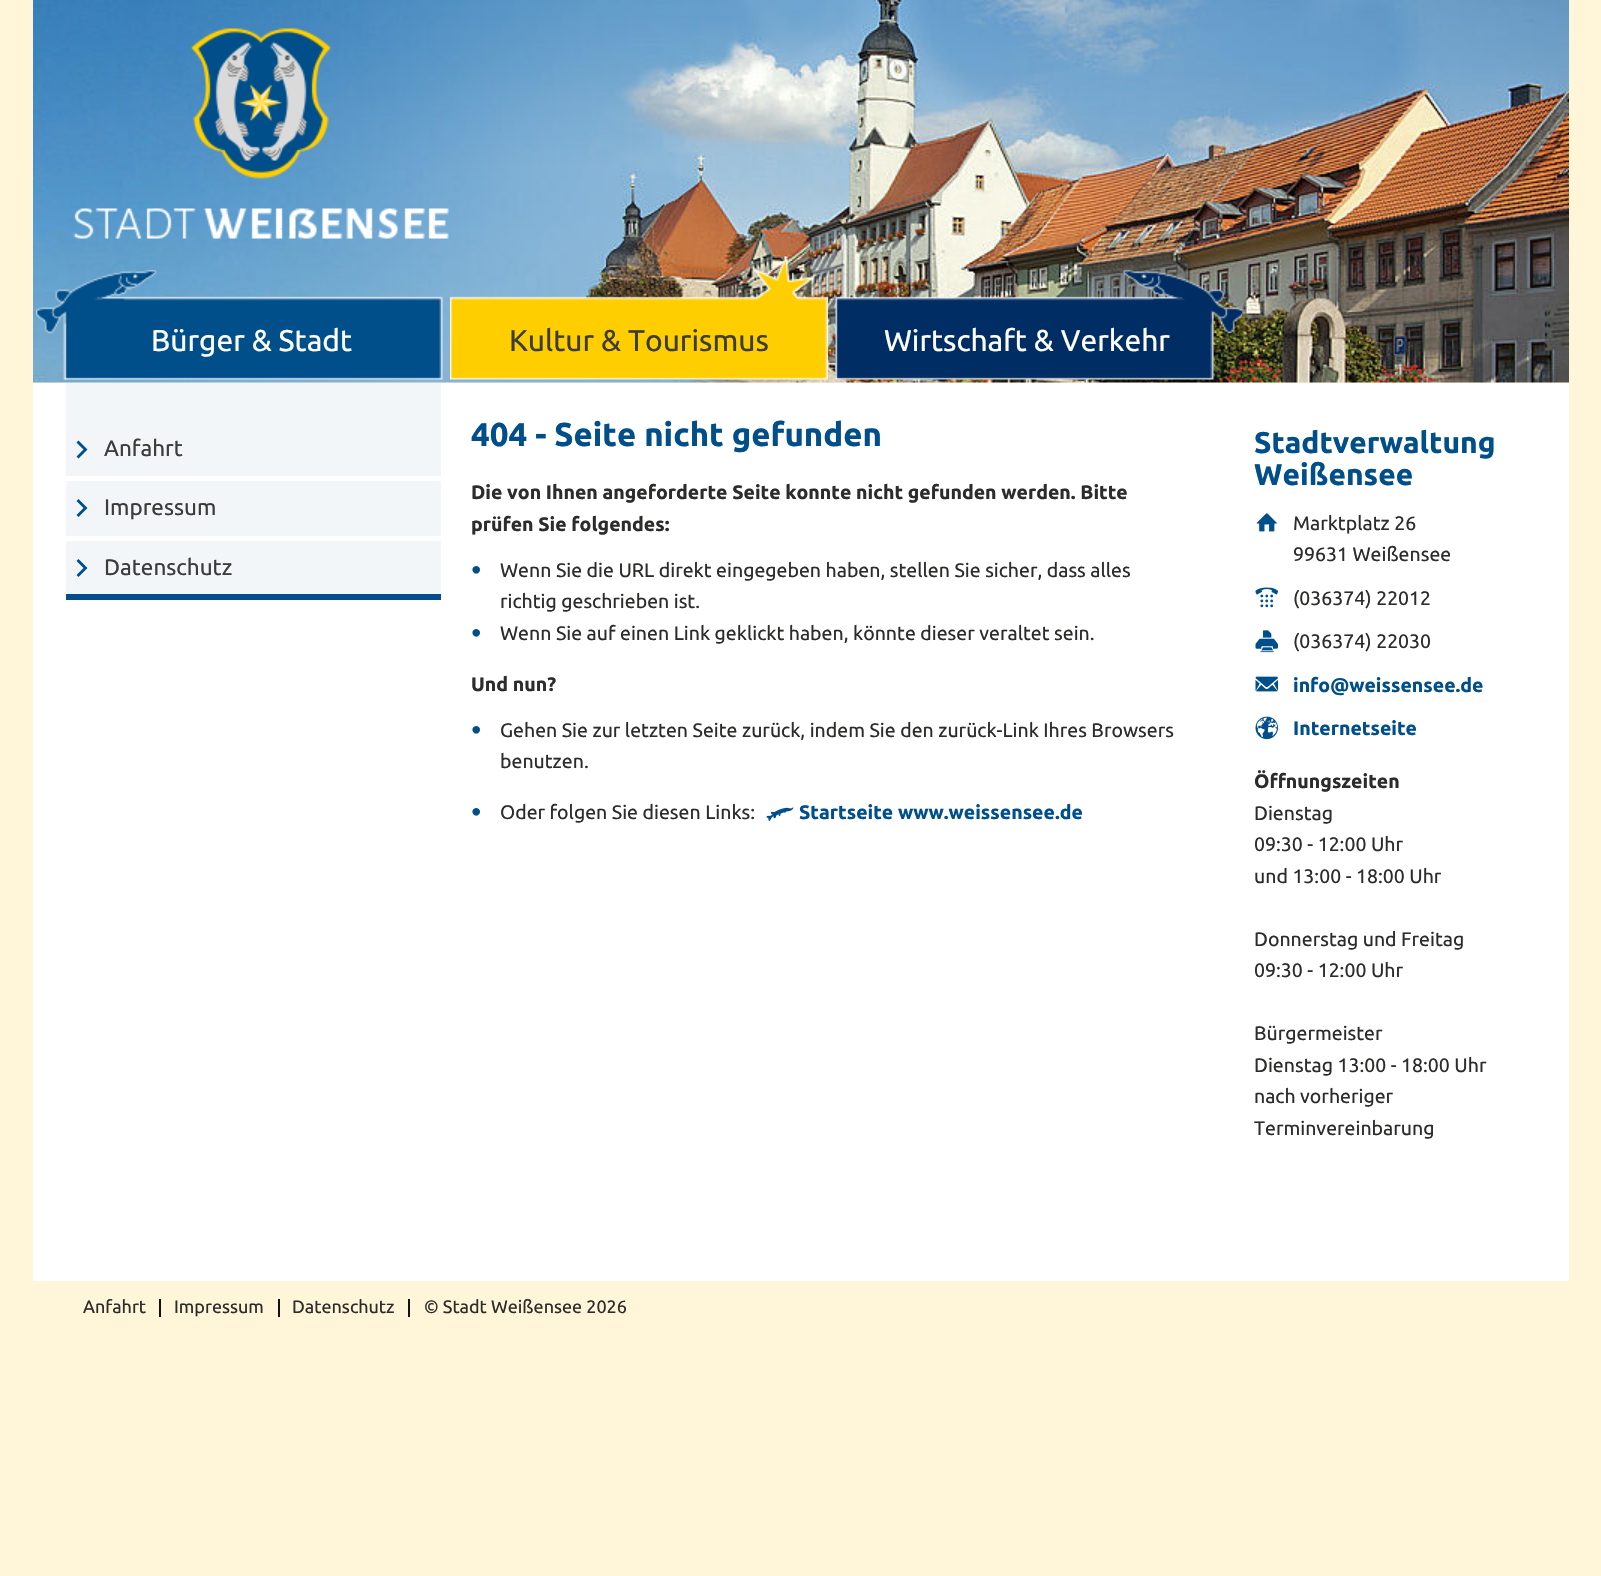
void draw(SkCanvas* c) {
SkPaint p;
p.setAntiAlias(true);
auto F=[&](const char* family, int weight, float size, bool italic = false){SkFontStyle style(weight, SkFontStyle::kNormal_Width,italic ? SkFontStyle::kItalic_Slant : SkFontStyle::kUpright_Slant);SkFont result(fontMgr->matchFamilyStyle(family, style), size);result.setSubpixel(true);return result;};
auto T=[&](const char* s, float x, float y, const SkFont& font){c->drawString(s, x, y, font, p);};
auto R=[&](float x, float y, float w, float h){c->drawRect(SkRect::MakeXYWH(x, y, w, h), p);};
auto I=[&](const char* path, float x, float y, float w, float h){auto image = SkImages::DeferredFromEncodedData(SkData::MakeFromFileName(path));c->drawImageRect(image, SkRect::MakeXYWH(x, y, w, h), SkSamplingOptions());};
auto P=[&](const char* data, bool evenOdd = false){SkPath result = *SkParsePath::FromSVGString(data);if (evenOdd) result.setFillType(SkPathFillType::kEvenOdd);return result;};
c->clear(0xfffff5d8);
I("1.png",33,0,1536,383);
I("2.png",73,28,376,211);
I("3.png",36,269,407,111);
auto f1 = F("Ubuntu",400,30);
p.setColor(0xffffffff);
T("Bürger & Stadt",151,351,f1);
I("4.png",450,256,378,124);
p.setColor(0xff3c3c3b);
T("Kultur & Tourismus",509,351,f1);
I("5.png",835,269,407,111);
p.setColor(0xffffffff);
T("Wirtschaft & Verkehr",884,351,f1);
R(33,383,1536,898);
p.setColor(0xfff2f6f9);
R(66,383,375,211);
p.setColor(0xff004f8a);
R(66,594,375,6);
p.setColor(0xffffffff);
R(66,476,375,5);
p.setColor(0xff004f8a);
c->drawPath(P("M78.5 458.5l-2-2l7-7l-7-7l2-2l9 9z"),p);
auto f2 = F("Ubuntu",400,22.5);
p.setColor(0xff3c3c3b);
T("Anfahrt",104,456,f2);
p.setColor(0xffffffff);
R(66,536,375,5);
p.setColor(0xff004f8a);
c->drawPath(P("M78.5 517l-2-2l7-7l-7-7l2-2l9 9z"),p);
p.setColor(0xff3c3c3b);
T("Impressum",104,515,f2);
p.setColor(0xff004f8a);
c->drawPath(P("M78.5 577l-2-2l7-7l-7-7l2-2l9 9z"),p);
p.setColor(0xff3c3c3b);
T("Datenschutz",104,575,f2);
auto f3 = F("Ubuntu",700,33);
p.setColor(0xff004f8a);
T("404 - Seite nicht gefunden",471,446,f3);
auto f4 = F("Ubuntu",700,19.5);
p.setColor(0xff2c2c2b);
T("Die von Ihnen angeforderte Seite konnte nicht gefunden werden. Bitte",471,499,f4);
T("prüfen Sie folgendes:",471,531,f4);
auto f5 = F("Ubuntu",400,29);
p.setColor(0xff004f8a);
T("•",471,580,f5);
auto f6 = F("Ubuntu",400,19.5);
p.setColor(0xff2c2c2b);
T("Wenn Sie die URL direkt eingegeben haben, stellen Sie sicher, dass alles",500,577,f6);
T("richtig geschrieben ist.",500,608,f6);
p.setColor(0xff004f8a);
T("•",471,643,f5);
p.setColor(0xff2c2c2b);
T("Wenn Sie auf einen Link geklickt haben, könnte dieser veraltet sein.",500,640,f6);
T("Und nun?",471,691,f4);
p.setColor(0xff004f8a);
T("•",471,740,f5);
p.setColor(0xff2c2c2b);
T("Gehen Sie zur letzten Seite zurück, indem Sie den zurück-Link Ihres Browsers",500,737,f6);
T("benutzen.",500,768,f6);
p.setColor(0xff004f8a);
T("•",471,822,f5);
p.setColor(0xff2c2c2b);
T("Oder folgen Sie diesen Links:",500,819,f6);
I("6.png",766,807,28,14);
p.setColor(0xff004f8a);
T("Startseite www.weissensee.de",799,819,f4);
auto f7 = F("Ubuntu",700,30);
T("Stadtverwaltung",1254,453,f7);
T("Weißensee",1254,485,f7);
I("7.png",1256,513,21,19);
p.setColor(0xff2c2c2b);
T("Marktplatz 26",1293,530,f6);
T("99631 Weißensee",1293,561,f6);
I("8.png",1255,587,23,21);
T("(036374) 22012",1293,605,f6);
I("9.png",1255,630,23,23);
T("(036374) 22030",1293,648,f6);
I("10.png",1255,676,23,16);
p.setColor(0xff004f8a);
T("info@weissensee.de",1293,692,f4);
I("11.png",1255,716,23,24);
T("Internetseite",1293,735,f4);
p.setColor(0xff2c2c2b);
T("Öffnungszeiten",1254,788,f4);
T("Dienstag",1254,820,f6);
T("09:30 - 12:00 Uhr",1254,851,f6);
T("und 13:00 - 18:00 Uhr",1254,883,f6);
T("Donnerstag und Freitag",1254,946,f6);
T("09:30 - 12:00 Uhr",1254,977,f6);
T("Bürgermeister",1254,1040,f6);
T("Dienstag 13:00 - 18:00 Uhr",1254,1072,f6);
T("nach vorheriger",1254,1103,f6);
T("Terminvereinbarung",1254,1135,f6);
p.setColor(0xff111111);
R(159,1299,2,18);
auto f8 = F("Ubuntu",400,18);
p.setColor(0xff2c2c2b);
T("Anfahrt",83,1313,f8);
p.setColor(0xff111111);
R(278,1299,2,18);
p.setColor(0xff2c2c2b);
T("Impressum",174,1313,f8);
p.setColor(0xff111111);
R(408,1299,2,18);
p.setColor(0xff2c2c2b);
T("Datenschutz",292,1313,f8);
T("© Stadt Weißensee 2026",424,1313,f8);
}
